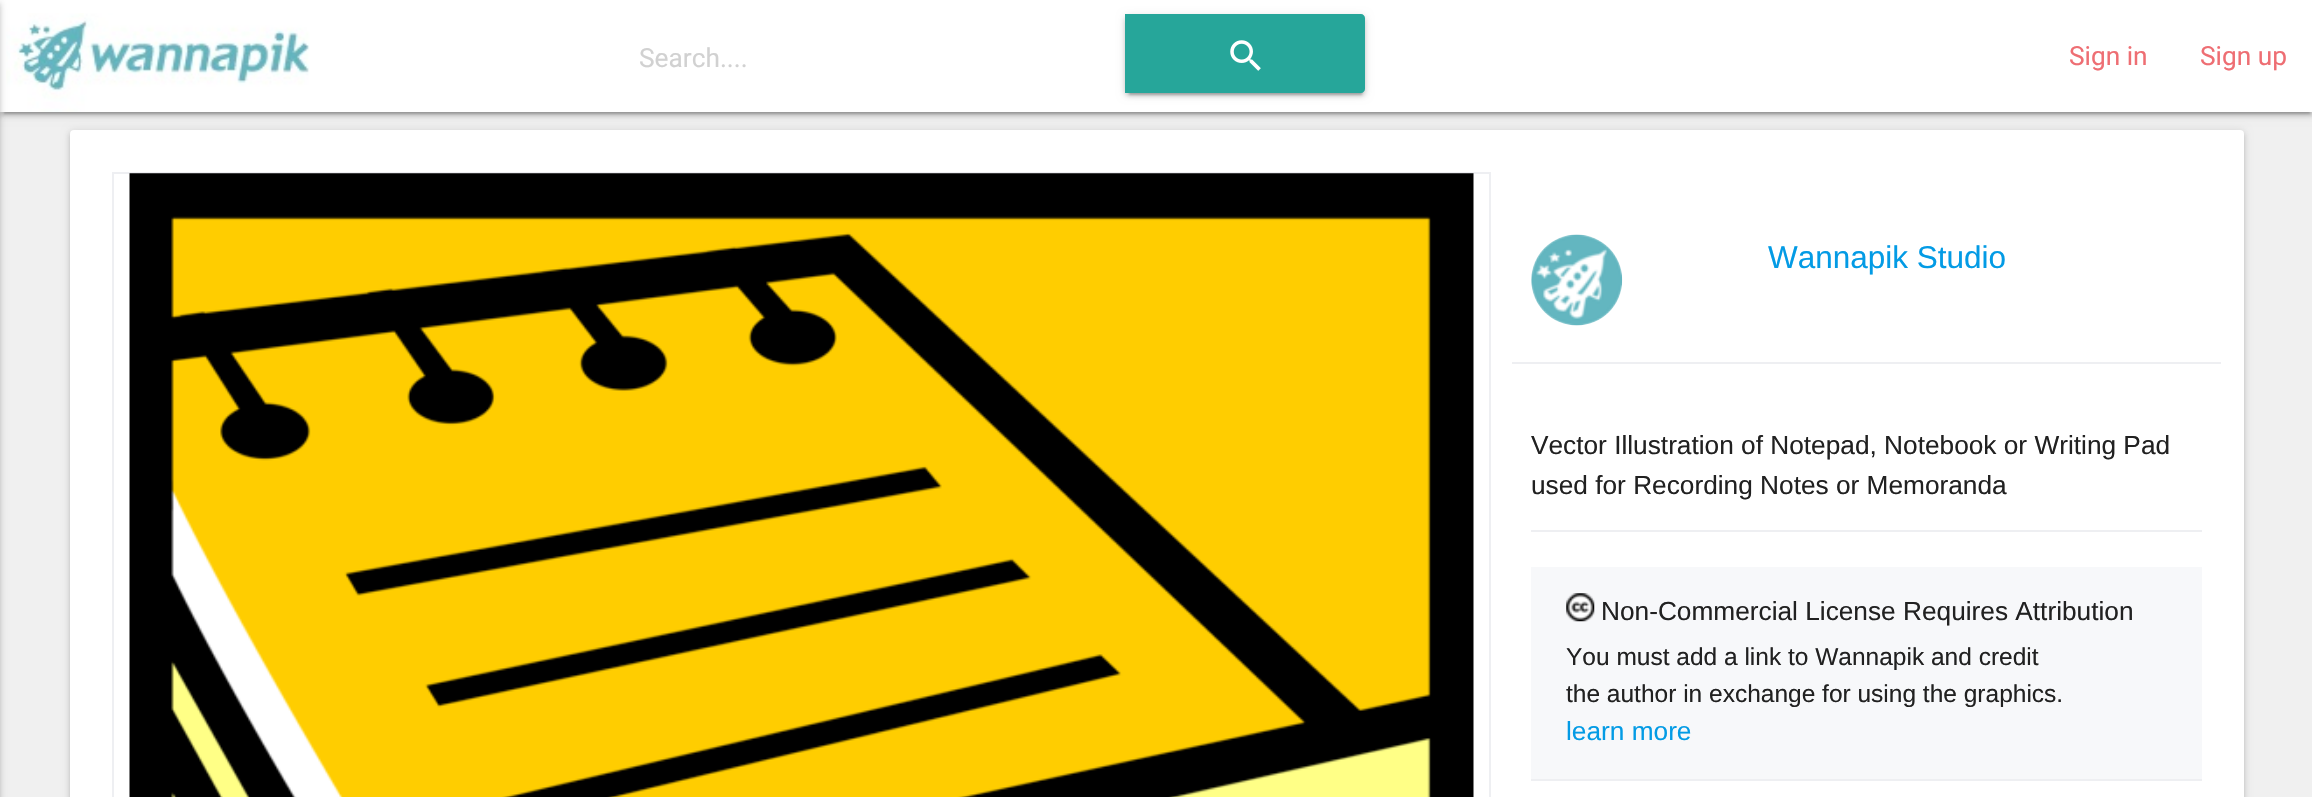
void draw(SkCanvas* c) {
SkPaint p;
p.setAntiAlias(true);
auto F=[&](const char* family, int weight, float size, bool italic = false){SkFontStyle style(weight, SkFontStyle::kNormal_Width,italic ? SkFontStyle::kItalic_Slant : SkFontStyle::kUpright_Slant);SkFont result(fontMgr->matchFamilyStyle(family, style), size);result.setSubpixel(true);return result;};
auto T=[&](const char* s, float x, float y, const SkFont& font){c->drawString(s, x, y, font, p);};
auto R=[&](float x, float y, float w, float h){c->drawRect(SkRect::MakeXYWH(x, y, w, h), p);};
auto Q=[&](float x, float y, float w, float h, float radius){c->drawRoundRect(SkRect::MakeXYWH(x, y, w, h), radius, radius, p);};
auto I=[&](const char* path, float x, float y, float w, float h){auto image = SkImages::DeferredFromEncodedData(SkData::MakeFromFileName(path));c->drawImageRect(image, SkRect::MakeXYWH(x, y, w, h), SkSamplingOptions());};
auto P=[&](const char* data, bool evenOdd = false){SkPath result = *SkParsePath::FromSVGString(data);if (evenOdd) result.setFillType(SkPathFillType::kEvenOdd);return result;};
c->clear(0xfff0f0f0);
p.setColor(0x33000000);
p.setMaskFilter(SkMaskFilter::MakeBlur(kNormal_SkBlurStyle, 1));
c->drawRect(SkRect::MakeXYWH(4,9,2306,105),p);
p.setMaskFilter(nullptr);
p.setColor(0x1f000000);
p.setMaskFilter(SkMaskFilter::MakeBlur(kNormal_SkBlurStyle, 4.5));
c->drawRect(SkRect::MakeXYWH(0,2,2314,112),p);
p.setMaskFilter(nullptr);
p.setColor(0x24000000);
p.setMaskFilter(SkMaskFilter::MakeBlur(kNormal_SkBlurStyle, 2));
c->drawRect(SkRect::MakeXYWH(0,4,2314,112),p);
p.setMaskFilter(nullptr);
p.setColor(0xffffffff);
R(0,0,2312,112);
I("1.png",6,13,304,99);
p.setColor(0x1f000000);
p.setMaskFilter(SkMaskFilter::MakeBlur(kNormal_SkBlurStyle, 4.5));
c->drawRect(SkRect::MakeXYWH(-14,2,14,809),p);
p.setMaskFilter(nullptr);
p.setColor(0x24000000);
p.setMaskFilter(SkMaskFilter::MakeBlur(kNormal_SkBlurStyle, 2));
c->drawRect(SkRect::MakeXYWH(-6,4,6,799),p);
p.setMaskFilter(nullptr);
auto f1 = F("Roboto",400,26.25);
p.setColor(0xffd1d1d1);
T("Search....",639,67,f1);
p.setColor(0x33000000);
p.setMaskFilter(SkMaskFilter::MakeBlur(kNormal_SkBlurStyle, 1));
c->drawRect(SkRect::MakeXYWH(1129,23,233,72),p);
p.setMaskFilter(nullptr);
p.setColor(0x1f000000);
p.setMaskFilter(SkMaskFilter::MakeBlur(kNormal_SkBlurStyle, 4.5));
c->drawRoundRect(SkRect::MakeXYWH(1125,16,240,79),4,4,p);
p.setMaskFilter(nullptr);
p.setColor(0x24000000);
p.setMaskFilter(SkMaskFilter::MakeBlur(kNormal_SkBlurStyle, 2));
c->drawRoundRect(SkRect::MakeXYWH(1125,18,240,78),4,4,p);
p.setMaskFilter(nullptr);
p.setColor(0xff26a69a);
c->drawPath(P("M1125 14h236c2 0 4 2 4 4v71c0 2-2 4-4 4h-236z"),p);
I("2.png",1230,40,31,31);
p.setColor(0xffee6e73);
T("Sign in",2069,65,f1);
T("Sign up",2200,65,f1);
p.setColor(0x1f000000);
p.setMaskFilter(SkMaskFilter::MakeBlur(kNormal_SkBlurStyle, 4.5));
c->drawRoundRect(SkRect::MakeXYWH(70,131,2174,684),4,4,p);
p.setMaskFilter(nullptr);
p.setColor(0x24000000);
p.setMaskFilter(SkMaskFilter::MakeBlur(kNormal_SkBlurStyle, 2));
c->drawRoundRect(SkRect::MakeXYWH(70,133,2174,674),4,4,p);
p.setMaskFilter(nullptr);
p.setColor(0xffffffff);
Q(70,130,2174,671,4);
p.setStroke(true);
p.setStrokeWidth(2);
p.setColor(0xffeeeff2);
c->drawRect(SkRect::MakeXYWH(113,173,1377,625),p);
I("3.png",129,173,1345,624);
p.setStroke(false);
R(1512,362,709,2);
I("4.png",1531,234,92,92);
auto f2 = F("Liberation Sans",400,31.5);
p.setColor(0xff039be5);
T("Wannapik Studio",1768,268,f2);
p.setColor(0xffeeeff2);
R(1531,530,671,2);
auto f3 = F("Liberation Sans",400,26.25);
p.setColor(0xff212121);
T("Vector Illustration of Notepad, Notebook or Writing Pad",1531,454,f3);
T("used for Recording Notes or Memoranda",1531,494,f3);
p.setColor(0xfff7f8fa);
R(1531,567,671,212);
p.setColor(0xffeeeff2);
R(1531,779,671,2);
I("5.png",1566,593,29,29);
p.setColor(0xff212121);
T("Non-Commercial License Requires Attribution",1601,620,f3);
auto f4 = F("Liberation Sans",400,24.5);
T("You must add a link to Wannapik and credit",1566,665,f4);
T("the author in exchange for using the graphics.",1566,702,f4);
p.setColor(0xff039be5);
T("learn more",1566,740,f3);
}
